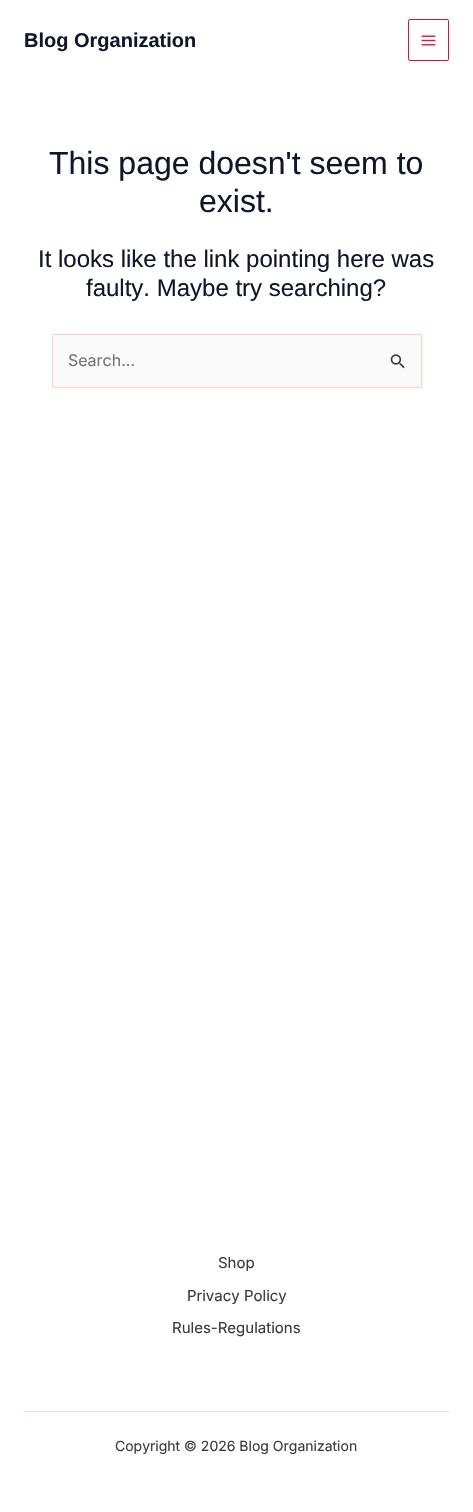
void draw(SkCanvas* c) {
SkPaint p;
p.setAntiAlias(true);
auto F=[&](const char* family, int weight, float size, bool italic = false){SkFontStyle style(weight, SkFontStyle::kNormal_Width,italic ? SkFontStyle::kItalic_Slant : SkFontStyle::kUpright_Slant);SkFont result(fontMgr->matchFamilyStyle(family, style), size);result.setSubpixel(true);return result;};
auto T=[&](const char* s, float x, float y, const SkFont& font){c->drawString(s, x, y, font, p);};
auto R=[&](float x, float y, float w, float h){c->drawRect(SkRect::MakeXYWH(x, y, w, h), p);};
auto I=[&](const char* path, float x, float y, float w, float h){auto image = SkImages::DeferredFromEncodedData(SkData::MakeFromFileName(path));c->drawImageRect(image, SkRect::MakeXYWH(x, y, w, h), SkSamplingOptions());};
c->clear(0xffffffff);
auto f1 = F("Liberation Sans",700,20);
p.setColor(0xff0f172a);
T("Blog Organization",24,47,f1);
p.setStroke(true);
p.setStrokeWidth(1);
p.setColor(0xffcc1939);
c->drawRoundRect(SkRect::MakeXYWH(408.5,19.5,40,41),1.5,1.5,p);
I("1.png",421,35,15,11);
auto f2 = F("Liberation Sans",400,32);
p.setStroke(false);
p.setColor(0xff0f172a);
T("This page doesn't seem to",49,174,f2);
T("exist.",199,212,f2);
auto f3 = F("Liberation Sans",400,24);
T("It looks like the link pointing here was",38,267,f3);
T("faulty. Maybe try searching?",86,296,f3);
p.setColor(0xfffafafa);
c->drawRoundRect(SkRect::MakeXYWH(52.5,334.5,369,53),1.5,1.5,p);
p.setStroke(true);
p.setColor(0xffffd1bf);
c->drawRoundRect(SkRect::MakeXYWH(52.5,334.5,369,53),1.5,1.5,p);
auto f4 = F("Inter",400,16);
p.setStroke(false);
p.setColor(0xff757575);
T("Search...",68,366,f4);
I("2.png",390,354,15,15);
auto f5 = F("Inter",400,15);
p.setColor(0xff3a3a3a);
T("Shop",218,1268,f5);
T("Privacy Policy",187,1301,f5);
T("Rules-Regulations",172,1333,f5);
p.setColor(0xffffd1bf);
R(24,1411,425,1);
auto f6 = F("Inter",400,14);
p.setColor(0xff3a3a3a);
T("Copyright © 2026 Blog Organization",115,1451,f6);
}
